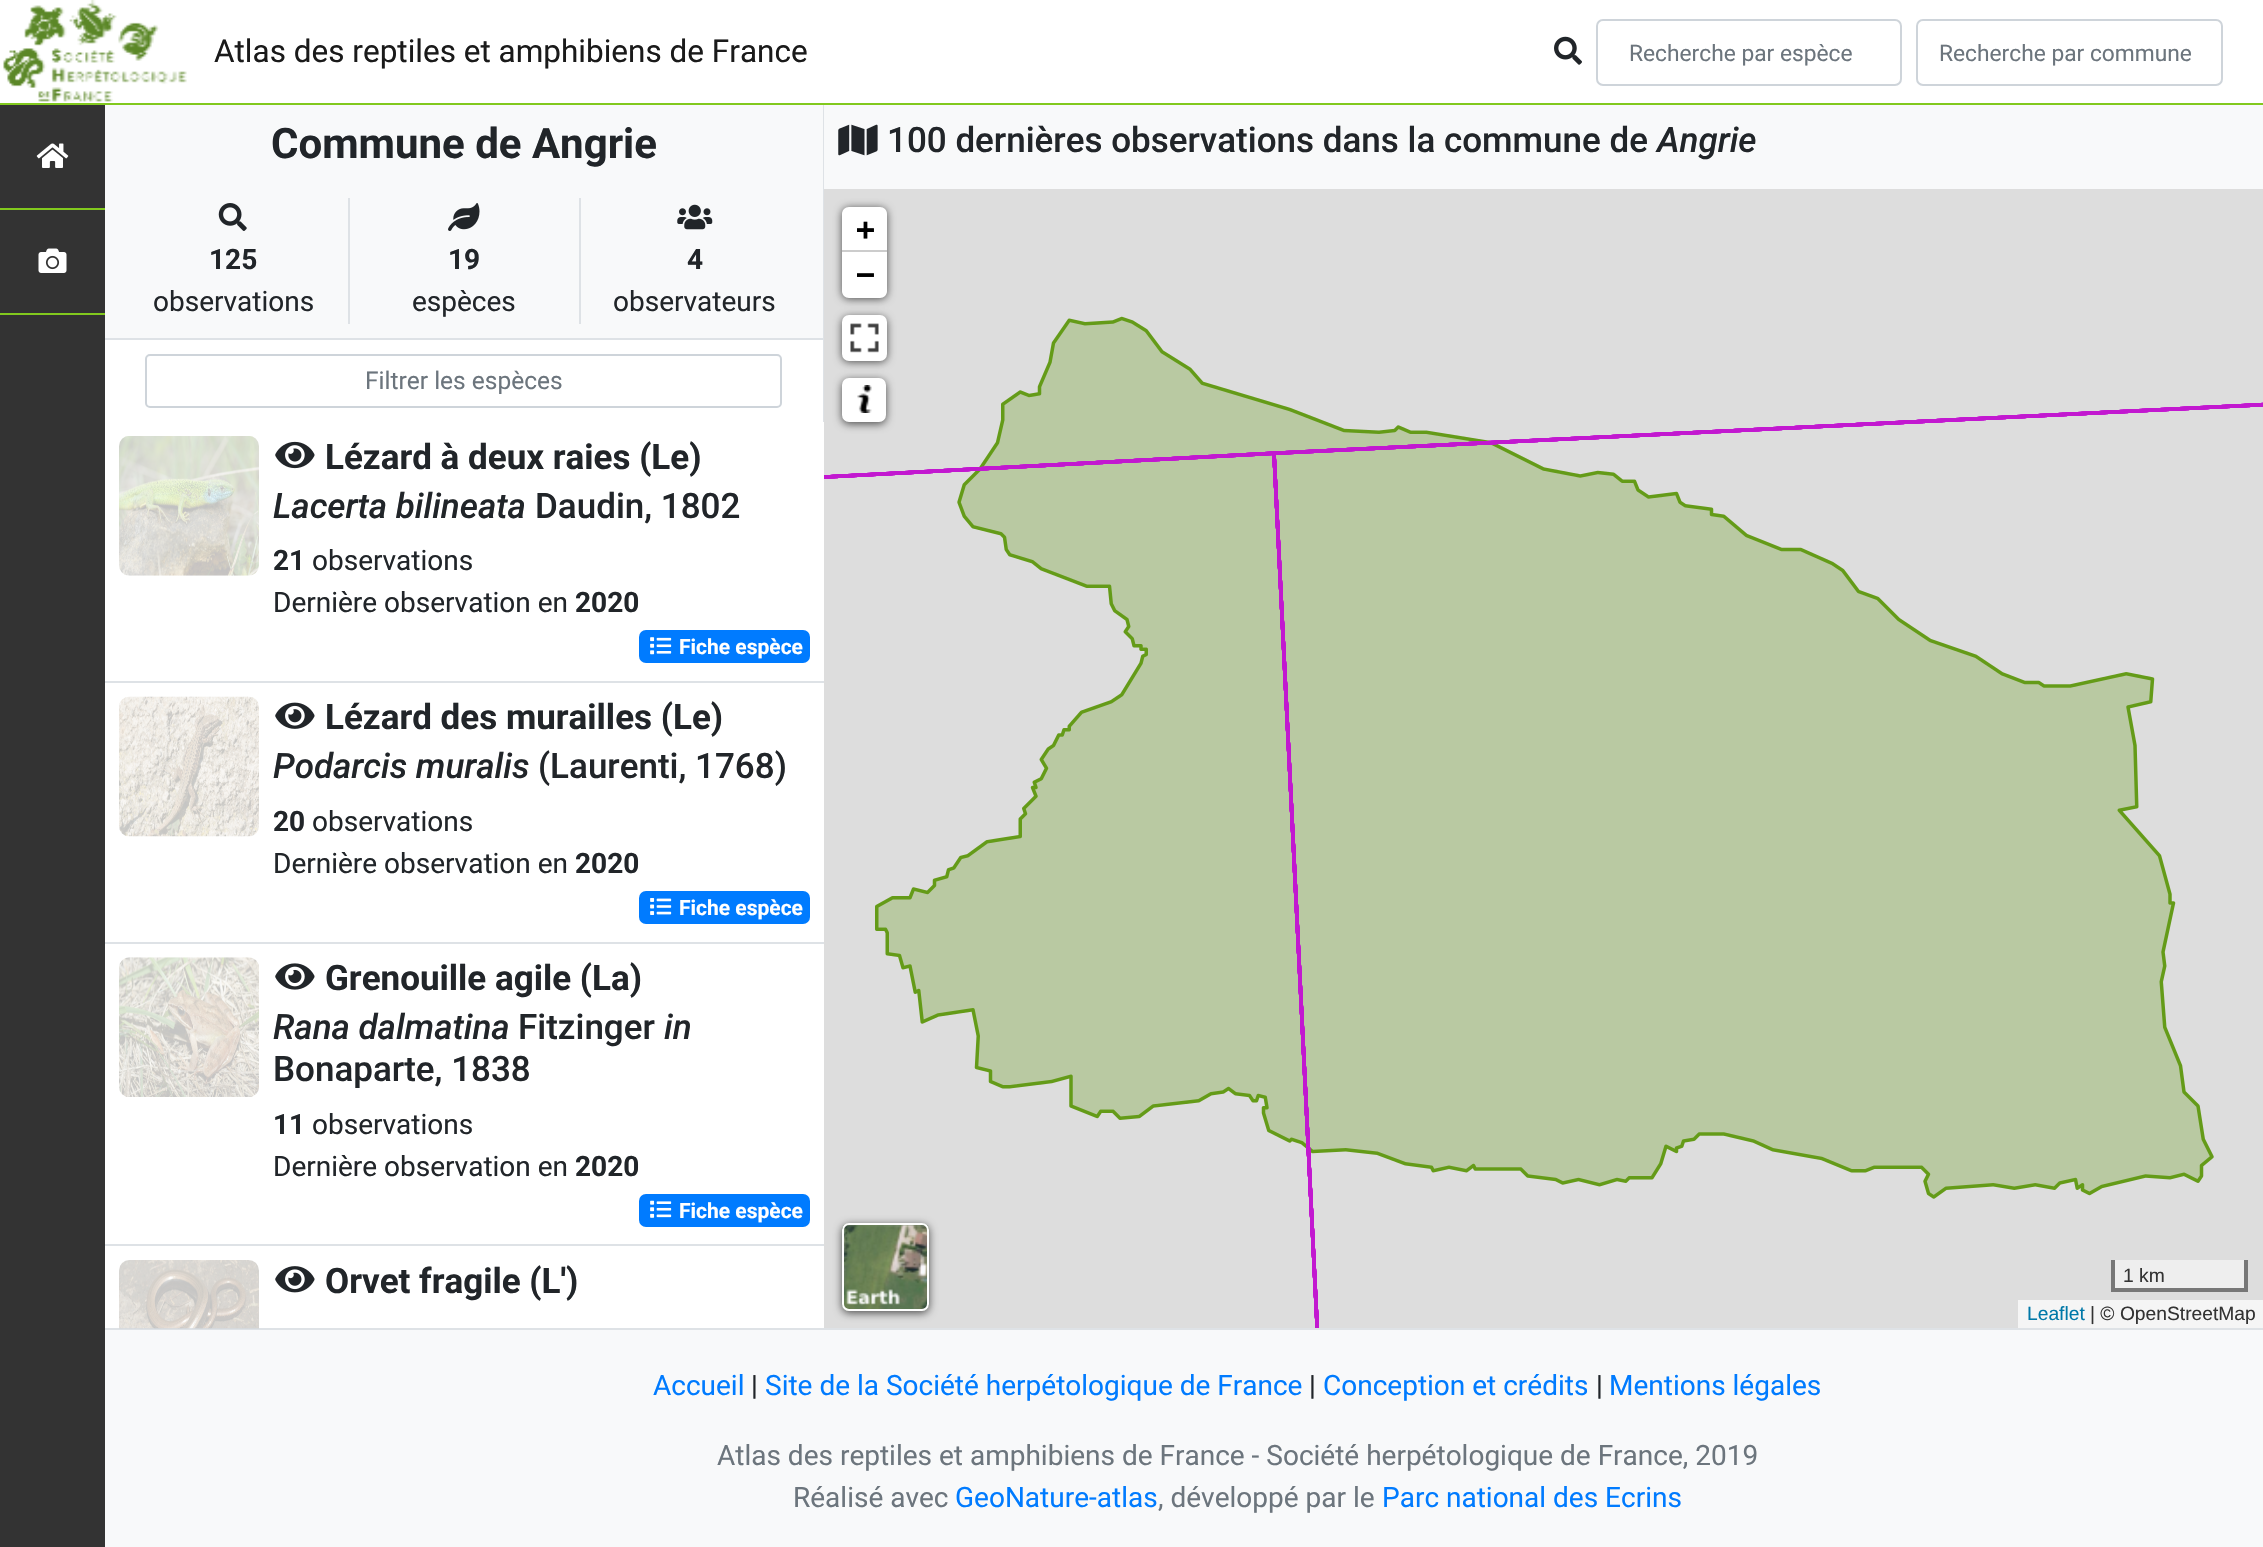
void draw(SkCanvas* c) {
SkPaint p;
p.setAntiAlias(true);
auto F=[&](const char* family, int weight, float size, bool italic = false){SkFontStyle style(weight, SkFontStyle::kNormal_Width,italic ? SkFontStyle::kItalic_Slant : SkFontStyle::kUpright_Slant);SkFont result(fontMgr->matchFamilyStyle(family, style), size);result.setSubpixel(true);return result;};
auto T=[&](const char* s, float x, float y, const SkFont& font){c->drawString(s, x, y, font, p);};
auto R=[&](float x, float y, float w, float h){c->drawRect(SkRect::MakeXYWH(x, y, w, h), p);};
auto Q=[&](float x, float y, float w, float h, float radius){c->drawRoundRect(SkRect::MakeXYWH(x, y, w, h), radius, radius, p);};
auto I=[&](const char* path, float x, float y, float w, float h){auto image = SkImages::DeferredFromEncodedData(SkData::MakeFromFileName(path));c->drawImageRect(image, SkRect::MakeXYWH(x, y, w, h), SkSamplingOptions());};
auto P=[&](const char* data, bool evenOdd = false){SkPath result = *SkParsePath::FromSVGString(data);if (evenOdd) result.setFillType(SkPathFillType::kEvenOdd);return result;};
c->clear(0xffdee2e6);
p.setColor(0xffffffff);
R(0,0,2263,103);
p.setColor(0xff82c91e);
R(0,103,2263,2);
I("1.png",3,0,184,102);
auto f1 = F("Roboto",400,31.5);
p.setColor(0xff1a1a1a);
T("Atlas des reptiles et amphibiens de France",214,62,f1);
I("2.png",1554,36,28,29);
p.setStroke(true);
p.setStrokeWidth(2);
p.setColor(0xffced4da);
c->drawRoundRect(SkRect::MakeXYWH(1597,20,304,65),6,6,p);
auto f2 = F("Roboto",400,22.75);
p.setStroke(false);
p.setColor(0xff6c757d);
T("Recherche par espèce",1629,61,f2);
p.setStroke(true);
p.setColor(0xffced4da);
c->drawRoundRect(SkRect::MakeXYWH(1917,20,305,65),6,6,p);
p.setStroke(false);
p.setColor(0xff6c757d);
T("Recherche par commune",1939,61,f2);
p.setColor(0xff333333);
R(0,105,105,1442);
p.setColor(0xff82c91e);
R(0,208,105,2);
I("3.png",36,143,33,25);
R(0,313,105,2);
I("4.png",38,248,29,25);
p.setColor(0xfff8f9fa);
R(105,105,718,233);
auto f3 = F("Roboto",700,42);
p.setColor(0xff212529);
T("Commune de Angrie",271,158,f3);
p.setColor(0xffdee2e6);
R(348,198,2,126);
I("5.png",218,203,29,28);
auto f4 = F("Roboto",700,28);
p.setColor(0xff212529);
T("125",209,269,f4);
auto f5 = F("Roboto",400,28);
T("observations",153,311,f5);
p.setColor(0xffdee2e6);
R(579,198,2,126);
I("6.png",448,203,32,28);
p.setColor(0xff212529);
T("19",448,269,f4);
T("espèces",412,311,f5);
I("7.png",677,204,36,26);
T("4",687,269,f4);
T("observateurs",613,311,f5);
p.setColor(0xffffffff);
R(105,340,718,82);
p.setStroke(true);
p.setColor(0xffced4da);
c->drawRoundRect(SkRect::MakeXYWH(146,355,635,52),4,4,p);
auto f6 = F("Roboto",400,24.5);
p.setStroke(false);
p.setColor(0xff6c757d);
T("Filtrer les espèces",365,389,f6);
p.setColor(0xffffffff);
R(105,422,719,906);
p.setColor(0xffdee2e6);
R(105,681,719,2);
I("8.png",119,436,140,140);
I("9.png",275,441,40,28);
auto f7 = F("Roboto",700,35);
p.setColor(0xff212529);
T("Lézard à deux raies (Le)",325,469,f7);
auto f8 = F("Roboto",500,35,true);
T("Lacerta bilineata",273,518,f8);
auto f9 = F("Roboto",500,35);
T("Daudin, 1802",535,518,f9);
T("21",273,570,f4);
T("observations",312,570,f5);
T("Dernière observation en",273,612,f5);
T("2020",575,612,f4);
p.setColor(0xff007bff);
Q(639,630,171,33,7);
I("10.png",650,637,22,18);
auto f10 = F("Roboto",700,21);
p.setColor(0xffffffff);
T("Fiche espèce",679,654,f10);
p.setColor(0xffdee2e6);
R(105,942,719,2);
I("11.png",119,696,140,141);
I("12.png",275,702,40,27);
p.setColor(0xff212529);
T("Lézard des murailles (Le)",325,729,f7);
T("Podarcis muralis",273,778,f8);
T("(Laurenti, 1768)",538,778,f9);
T("20",273,831,f4);
T("observations",312,831,f5);
T("Dernière observation en",273,873,f5);
T("2020",575,873,f4);
p.setColor(0xff007bff);
Q(639,891,171,33,7);
I("13.png",650,898,22,17);
p.setColor(0xffffffff);
T("Fiche espèce",679,915,f10);
p.setColor(0xffdee2e6);
R(105,1244,719,2);
I("14.png",119,957,140,140);
I("15.png",275,963,40,27);
p.setColor(0xff212529);
T("Grenouille agile (La)",325,990,f7);
T("Rana dalmatina",273,1039,f8);
T("Fitzinger",518,1039,f9);
T("in",664,1039,f8);
T("Bonaparte, 1838",273,1081,f9);
T("11",273,1134,f4);
T("observations",312,1134,f5);
T("Dernière observation en",273,1176,f5);
T("2020",575,1176,f4);
p.setColor(0xff007bff);
Q(639,1194,171,33,7);
I("16.png",650,1200,22,18);
p.setColor(0xffffffff);
T("Fiche espèce",679,1218,f10);
I("17.png",119,1260,140,69);
I("18.png",275,1266,40,27);
p.setColor(0xff212529);
T("Orvet fragile (L')",325,1293,f7);
p.setColor(0xfff8f9fa);
R(824,105,1439,84);
I("19.png",838,124,40,32);
p.setColor(0xff212529);
T("100 dernières observations dans la commune de",887,152,f9);
T("Angrie",1657,152,f8);
p.setColor(0xffdddddd);
R(824,189,1439,1139);
p.setColor(0xa6000000);
p.setMaskFilter(SkMaskFilter::MakeBlur(kNormal_SkBlurStyle, 4.5));
c->drawRoundRect(SkRect::MakeXYWH(842,208,45,91),7,7,p);
p.setMaskFilter(nullptr);
p.setColor(0xffffffff);
c->drawPath(P("M849 207h31c4 0 7 3 7 7v38h-45v-38c0-4 3-7 7-7z"),p);
p.setColor(0xffcccccc);
R(842,250,45,2);
auto f11 = F("DejaVu Sans Mono",700,31.5);
p.setColor(0xff000000);
T("+",856,240,f11);
p.setColor(0xffffffff);
c->drawPath(P("M842 252h45v39c0 4-3 7-7 7h-31c-4 0-7-3-7-7z"),p);
p.setColor(0xff000000);
T("−",856,285,f11);
I("23.png",824,316,1439,1012);
p.setColor(0xa6000000);
p.setMaskFilter(SkMaskFilter::MakeBlur(kNormal_SkBlurStyle, 4.5));
c->drawRoundRect(SkRect::MakeXYWH(842,317,45,45),7,7,p);
p.setMaskFilter(nullptr);
p.setColor(0xffffffff);
Q(842,315,45,46,7);
I("20.png",850,323,29,30);
p.setColor(0xa6000000);
p.setMaskFilter(SkMaskFilter::MakeBlur(kNormal_SkBlurStyle, 4.5));
c->drawRoundRect(SkRect::MakeXYWH(842,380,44,44),7,7,p);
p.setMaskFilter(nullptr);
p.setColor(0xffffffff);
c->drawRoundRect(SkRect::MakeXYWH(843,379,42,42),6,6,p);
p.setStroke(true);
c->drawRoundRect(SkRect::MakeXYWH(843,379,42,42),6,6,p);
I("21.png",857,385,15,28);
c->save();
c->clipPath(P("M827 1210h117v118h-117zm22 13h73c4 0 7 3 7 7v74c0 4-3 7-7 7h-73c-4 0-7-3-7-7v-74c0-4 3-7 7-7z",true),true);
p.setStroke(false);
p.setColor(0xa6000000);
p.setMaskFilter(SkMaskFilter::MakeBlur(kNormal_SkBlurStyle, 4.5));
c->drawRoundRect(SkRect::MakeXYWH(842,1225,87,88),7,7,p);
p.setMaskFilter(nullptr);
c->restore();
I("22.png",841,1223,89,88);
p.setStroke(true);
p.setColor(0xffffffff);
c->drawRoundRect(SkRect::MakeXYWH(843,1224,85,86),6,6,p);
p.setStroke(false);
p.setColor(0xffeeeeee);
R(2115,1260,129,28);
p.setColor(0xff777777);
R(2244,1260,4,32);
R(2111,1288,136,4);
R(2111,1260,4,32);
auto f12 = F("Liberation Sans",400,19.25);
p.setColor(0xff333333);
T("1 km",2123,1282,f12);
p.setColor(0xfff5f5f5);
R(2018,1300,245,28);
p.setColor(0xff0078a8);
T("Leaflet",2027,1320,f12);
p.setColor(0xff333333);
T("| © OpenStreetMap",2090,1320,f12);
p.setColor(0xfff8f9fa);
R(105,1330,2158,217);
p.setColor(0xff007bff);
T("Accueil",653,1395,f5);
p.setColor(0xff212529);
T("|",751,1395,f5);
p.setColor(0xff007bff);
T("Site de la Société herpétologique de France",765,1395,f5);
p.setColor(0xff212529);
T("|",1309,1395,f5);
p.setColor(0xff007bff);
T("Conception et crédits",1323,1395,f5);
p.setColor(0xff212529);
T("|",1596,1395,f5);
p.setColor(0xff007bff);
T("Mentions légales",1609,1395,f5);
p.setColor(0xff6c757d);
T("Atlas des reptiles et amphibiens de France - Société herpétologique de France, 2019",717,1465,f5);
T("Réalisé avec",793,1507,f5);
p.setColor(0xff007bff);
T("GeoNature-atlas",955,1507,f5);
p.setColor(0xff6c757d);
T(", développé par le",1158,1507,f5);
p.setColor(0xff007bff);
T("Parc national des Ecrins",1382,1507,f5);
}
